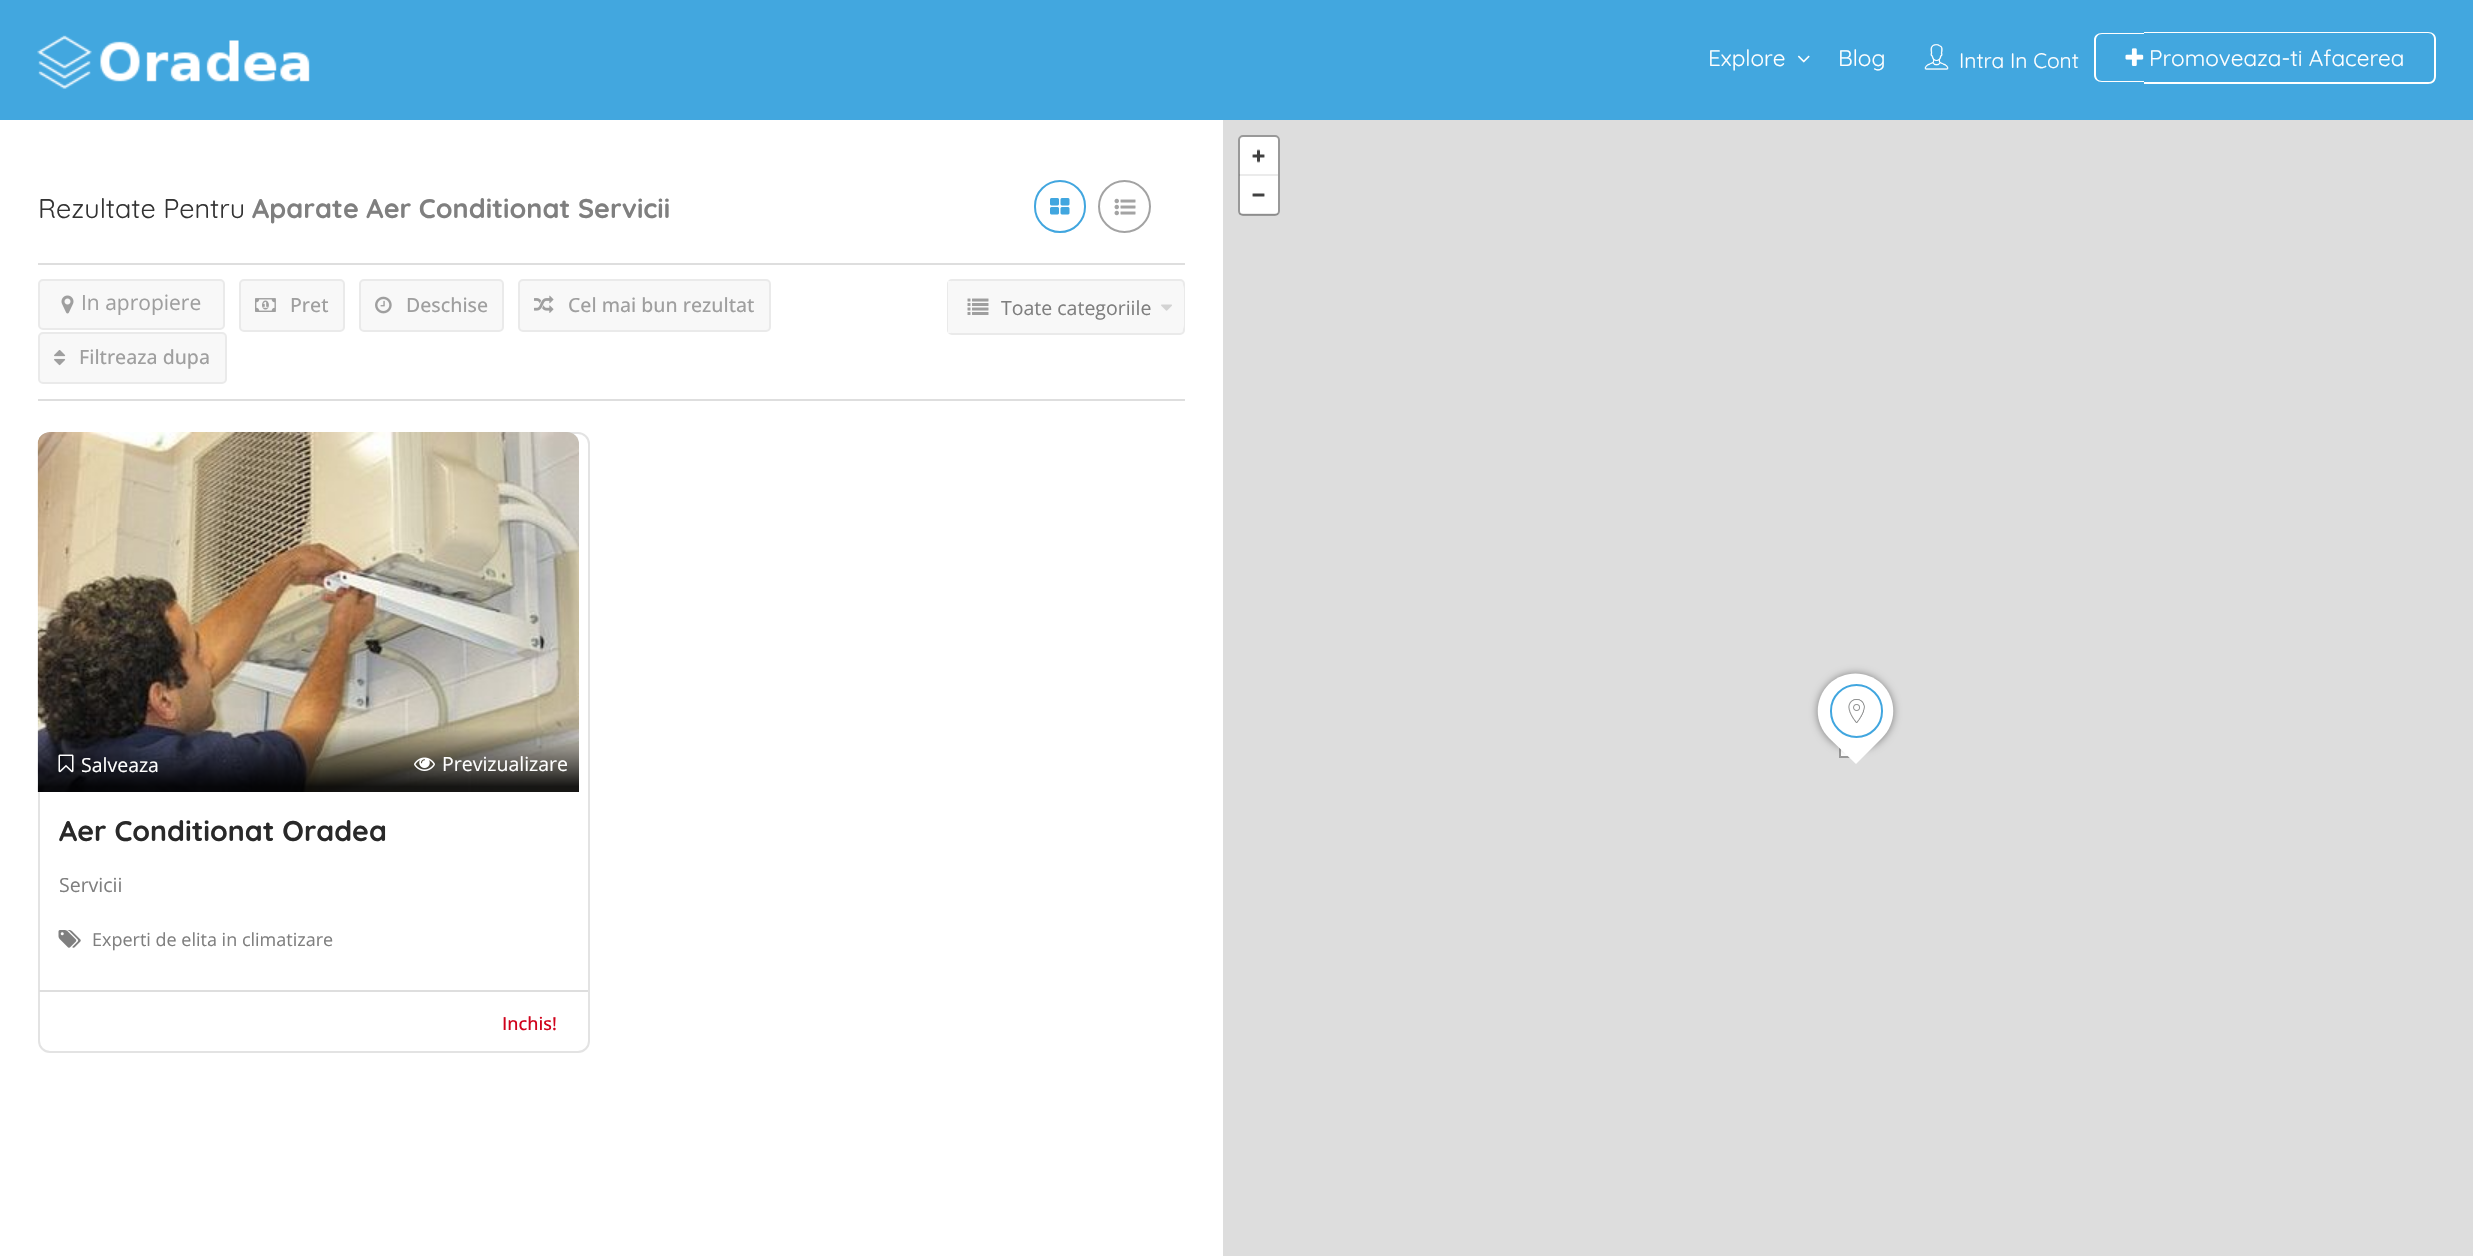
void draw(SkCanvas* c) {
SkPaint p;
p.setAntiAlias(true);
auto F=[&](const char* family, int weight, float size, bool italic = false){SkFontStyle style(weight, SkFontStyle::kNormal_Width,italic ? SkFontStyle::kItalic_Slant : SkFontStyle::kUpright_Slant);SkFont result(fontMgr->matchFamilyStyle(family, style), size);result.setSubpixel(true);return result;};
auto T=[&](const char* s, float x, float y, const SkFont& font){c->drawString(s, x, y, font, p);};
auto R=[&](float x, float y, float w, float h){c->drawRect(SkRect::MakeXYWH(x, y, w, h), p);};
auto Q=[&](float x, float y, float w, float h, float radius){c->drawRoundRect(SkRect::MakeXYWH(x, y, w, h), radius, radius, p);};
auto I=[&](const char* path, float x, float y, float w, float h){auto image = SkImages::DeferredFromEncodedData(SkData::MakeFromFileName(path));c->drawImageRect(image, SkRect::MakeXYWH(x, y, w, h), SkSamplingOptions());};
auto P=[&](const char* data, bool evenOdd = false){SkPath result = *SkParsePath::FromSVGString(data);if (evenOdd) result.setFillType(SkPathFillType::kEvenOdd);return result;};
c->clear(0xffffffff);
p.setColor(0xff42a7df);
R(0,0,2473,120);
I("1.png",37,35,273,54);
auto f1 = F("Quicksand",400,22.5);
p.setColor(0xffffffff);
T("Explore",1708,66,f1);
I("2.png",1797,55,13,8);
T("Blog",1838,66,f1);
I("3.png",1924,44,25,26);
auto f2 = F("Quicksand",400,21);
T("Intra In Cont",1959,68,f2);
c->drawPath(P("M2102 33h42v49h-42c-5 0-8-3-8-7v-35c0-4 3-7 8-7zm0 1h42v47h-42c-4 0-6-3-6-6v-35c0-3 2-6 6-6z",true),p);
c->drawPath(P("M2144 32h284c5 0 8 3 8 7v37c0 5-3 8-8 8h-284zm0 1h284c4 0 6 3 6 6v37c0 4-2 6-6 6h-284z",true),p);
I("4.png",2125,48,19,18);
T("Promoveaza-ti Afacerea",2149,66,f1);
auto f3 = F("Quicksand",400,27);
p.setColor(0xff333333);
T("Rezultate Pentru",38,218,f3);
auto f4 = F("Quicksand",700,27);
p.setColor(0xff7f7f7f);
T("Aparate Aer Conditionat Servicii",252,218,f4);
p.setStroke(true);
p.setStrokeWidth(2);
p.setColor(0xff41a6df);
c->drawRoundRect(SkRect::MakeXYWH(1035,181,50,51),25,25,p);
I("5.png",1050,198,20,17);
p.setColor(0xffa3a3a3);
c->drawCircle(1124.5,206.5,25.5,p);
I("6.png",1114,198,22,18);
p.setStroke(false);
p.setColor(0xffdedede);
R(38,263,1147,2);
R(38,399,1147,2);
p.setColor(0xfff8f8f8);
c->drawRoundRect(SkRect::MakeXYWH(39,280,185,49),4,4,p);
p.setStroke(true);
p.setColor(0xffeaeaea);
c->drawRoundRect(SkRect::MakeXYWH(39,280,185,49),4,4,p);
I("7.png",61,295,13,19);
auto f5 = F("Open Sans",400,21);
p.setStroke(false);
p.setColor(0xff9f9f9f);
T("In apropiere",81,310,f5);
p.setColor(0xfff8f8f8);
c->drawRoundRect(SkRect::MakeXYWH(240,280,104,51),4,4,p);
p.setStroke(true);
p.setColor(0xffeaeaea);
c->drawRoundRect(SkRect::MakeXYWH(240,280,104,51),4,4,p);
I("8.png",255,298,21,14);
auto f6 = F("Open Sans",500,19.5);
p.setStroke(false);
p.setColor(0xff9f9f9f);
T("Pret",290,312,f6);
p.setColor(0xfff8f8f8);
c->drawRoundRect(SkRect::MakeXYWH(360,280,143,51),4,4,p);
p.setStroke(true);
p.setColor(0xffeaeaea);
c->drawRoundRect(SkRect::MakeXYWH(360,280,143,51),4,4,p);
I("9.png",375,296,17,18);
p.setStroke(false);
p.setColor(0xff9f9f9f);
T("Deschise",406,312,f6);
p.setColor(0xfff8f8f8);
c->drawRoundRect(SkRect::MakeXYWH(519,280,251,51),4,4,p);
p.setStroke(true);
p.setColor(0xffeaeaea);
c->drawRoundRect(SkRect::MakeXYWH(519,280,251,51),4,4,p);
I("10.png",534,295,20,18);
p.setStroke(false);
p.setColor(0xff9f9f9f);
T("Cel mai bun rezultat",568,312,f6);
p.setColor(0xfff8f8f8);
c->drawRoundRect(SkRect::MakeXYWH(39,333,187,50),4,4,p);
p.setStroke(true);
p.setColor(0xffeaeaea);
c->drawRoundRect(SkRect::MakeXYWH(39,333,187,50),4,4,p);
I("11.png",54,350,12,16);
p.setStroke(false);
p.setColor(0xff9f9f9f);
T("Filtreaza dupa",79,364,f6);
p.setColor(0xfff8f8f8);
c->drawRoundRect(SkRect::MakeXYWH(948,280,236,54),4,4,p);
p.setStroke(true);
p.setColor(0xffeaeaea);
c->drawRoundRect(SkRect::MakeXYWH(948,280,236,54),4,4,p);
p.setStroke(false);
p.setColor(0xfff8f8f8);
R(948,281,3,52);
I("12.png",967,298,22,17);
c->drawPath(P("M989 281h187c4.5 0 8 3.5 8 8v36c0 4.5-3.5 8-8 8h-187z"),p);
auto f7 = F("Open Sans",400,19.5);
p.setColor(0xff7f7f7f);
T("Toate categoriile",1001,315,f7);
I("13.png",1161,304,11,7);
p.setStroke(true);
p.setColor(0xffe3e3e3);
c->drawRoundRect(SkRect::MakeXYWH(39,433,550,619),11,11,p);
I("14.png",37,432,542,360);
I("15.png",58,754,16,19);
p.setStroke(false);
p.setColor(0xffffffff);
T("Salveaza",81,772,f7);
I("16.png",414,757,21,14);
T("Previzualizare",442,771,f7);
auto f8 = F("Quicksand",700,28.5);
p.setColor(0xff292929);
T("Aer Conditionat Oradea",59,841,f8);
p.setColor(0xff7f7f7f);
T("Servicii",59,892,f7);
I("17.png",58,930,23,18);
auto f9 = F("Open Sans",400,18);
T("Experti de elita in climatizare",92,946,f9);
p.setColor(0xffdedede);
R(39,990,549,2);
auto f10 = F("Open Sans",500,18);
p.setColor(0xffd0021b);
T("Inchis!",502,1030,f10);
p.setColor(0xffdddddd);
R(1223,120,1250,1136);
p.setColor(0xffffffff);
Q(1238,135,42,81,5);
p.setStroke(true);
p.setColor(0x66000000);
c->drawRoundRect(SkRect::MakeXYWH(1239,136,40,79),4,4,p);
I("18.png",1252,149,13,14);
p.setStroke(false);
p.setColor(0x14000000);
R(1239,174,39,2);
I("19.png",1252,193,13,4);
R(1239,213,39,2);
p.setColor(0xffffffff);
R(1841,749,7,7);
p.setStroke(true);
p.setColor(0xff999999);
c->drawRect(SkRect::MakeXYWH(1840,741,16,16),p);
p.setStroke(false);
p.setColor(0x78000000);
p.setMaskFilter(SkMaskFilter::MakeBlur(kNormal_SkBlurStyle, 4));
c->drawRoundRect(SkRect::MakeXYWH(1818,674,75,75),37.5,37.5,p);
p.setMaskFilter(nullptr);
p.setColor(0xffffffff);
c->drawPath(P("M1829 684c15-14 38-14 53 0c15 15 15 39 0 54l-26 26l-27-26c-15-15-15-39 0-54z"),p);
p.setStroke(true);
p.setColor(0xff41a6df);
c->drawRoundRect(SkRect::MakeXYWH(1831,685,51,52),25.5,25.5,p);
I("20.png",1848,699,17,24);
}
